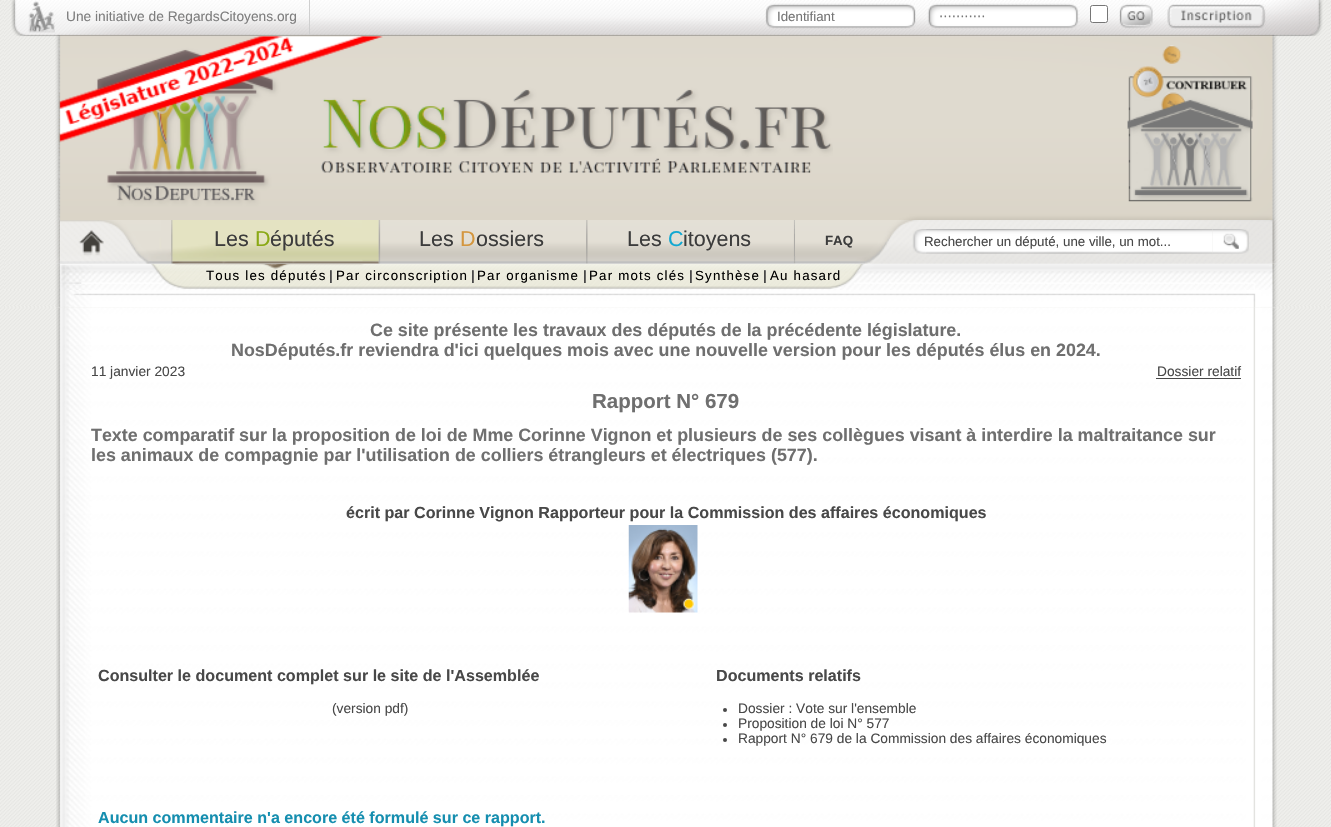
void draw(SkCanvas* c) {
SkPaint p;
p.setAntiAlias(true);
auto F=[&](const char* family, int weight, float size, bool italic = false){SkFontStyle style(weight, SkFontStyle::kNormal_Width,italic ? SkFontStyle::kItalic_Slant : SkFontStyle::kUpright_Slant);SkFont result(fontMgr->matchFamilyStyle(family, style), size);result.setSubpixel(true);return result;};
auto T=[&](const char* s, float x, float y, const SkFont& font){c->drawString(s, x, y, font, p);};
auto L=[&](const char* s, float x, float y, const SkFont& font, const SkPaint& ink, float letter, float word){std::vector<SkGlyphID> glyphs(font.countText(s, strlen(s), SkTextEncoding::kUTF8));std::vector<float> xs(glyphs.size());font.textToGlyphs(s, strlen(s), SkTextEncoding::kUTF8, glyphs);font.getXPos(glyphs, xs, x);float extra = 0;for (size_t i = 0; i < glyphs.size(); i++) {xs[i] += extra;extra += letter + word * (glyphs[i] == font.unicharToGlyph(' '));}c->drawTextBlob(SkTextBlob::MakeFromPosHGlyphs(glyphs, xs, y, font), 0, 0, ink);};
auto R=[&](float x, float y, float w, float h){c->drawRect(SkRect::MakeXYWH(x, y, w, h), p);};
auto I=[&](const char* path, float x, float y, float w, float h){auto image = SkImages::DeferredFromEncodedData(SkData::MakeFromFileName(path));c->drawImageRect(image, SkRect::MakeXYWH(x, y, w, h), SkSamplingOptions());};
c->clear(0xffffffff);
I("1.png",0,0,1331,827);
I("2.png",4,0,1325,37);
I("3.png",28,1,27,32);
p.setColor(0xffcfcfcf);
R(309,0,1,35);
auto f1 = F("Liberation Sans",400,13.75);
p.setColor(0xff7e7e7e);
T("Une initiative de RegardsCitoyens.org",66,21,f1);
I("4.png",765,3,151,26);
auto f2 = F("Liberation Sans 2",400,13.3);
p.setColor(0xff757575);
T("Identifiant",777,21,f2);
I("5.png",927,3,152,26);
auto f3 = F("DejaVu Sans",400,13.3);
T("⋅⋅⋅⋅⋅⋅⋅⋅⋅⋅⋅",939,21,f3);
p.setColor(0xffffffff);
c->drawRoundRect(SkRect::MakeXYWH(1090.5,5.5,17,17),2,2,p);
p.setStroke(true);
p.setStrokeWidth(1);
p.setColor(0xff767676);
c->drawRoundRect(SkRect::MakeXYWH(1090.5,5.5,17,17),2,2,p);
I("6.png",1119,3,34,26);
I("7.png",1167,4,99,25);
I("8.png",4,36,1325,184);
I("9.png",58,36,775,184);
I("10.png",1127,45,126,157);
I("11.png",4,220,1325,44);
I("12.png",60,220,112,44);
I("13.png",171,220,208,44);
auto f4 = F("Liberation Sans 2",400,21.5);
p.setStroke(false);
p.setColor(0xff3c3c3c);
T("Les",214,246,f4);
p.setColor(0xff8aa915);
T("D",255,246,f4);
p.setColor(0xff3c3c3c);
T("éputés",270,246,f4);
I("14.png",378,220,209,44);
T("Les",419,246,f4);
p.setColor(0xffd4963e);
T("D",460,246,f4);
p.setColor(0xff3c3c3c);
T("ossiers",476,246,f4);
I("15.png",586,220,208,44);
T("Les",627,246,f4);
p.setColor(0xff12a8d2);
T("C",668,246,f4);
p.setColor(0xff3c3c3c);
T("itoyens",683,246,f4);
I("16.png",795,220,92,36);
auto f5 = F("Liberation Sans",700,13.3);
T("FAQ",825,245,f5);
I("17.png",912,229,301,25);
p.setColor(0xff484848);
T("Rechercher un député, une ville, un mot...",924,246,f2);
I("18.png",1212,229,37,25);
I("21.png",56,307,1221,520);
I("19.png",4,263,1325,45);
I("20.png",4,263,1325,27);
auto f6 = F("Liberation Sans",400,13.3);
p.setColor(0xff000000);
L("Tous les députés",206,280,f6,p,1.2,0);
auto f7 = F("Liberation Sans 2",700,13.3);
p.setColor(0xff484848);
T("|",329,280,f7);
p.setColor(0xff000000);
L("Par circonscription",336,280,f6,p,1.2,0);
p.setColor(0xff484848);
T("|",471,280,f7);
p.setColor(0xff000000);
L("Par organisme",477,280,f6,p,1.2,0);
p.setColor(0xff484848);
T("|",583,280,f7);
p.setColor(0xff000000);
L("Par mots clés",589,280,f6,p,1.2,0);
p.setColor(0xff484848);
T("|",689,280,f7);
p.setColor(0xff000000);
L("Synthèse",695,280,f6,p,1.2,0);
p.setColor(0xff484848);
T("|",763,280,f7);
p.setColor(0xff000000);
L("Au hasard",770,280,f6,p,1.2,0);
auto f8 = F("Liberation Sans 2",700,17.88);
p.setColor(0xff6f6f6f);
T("Ce site présente les travaux des députés de la précédente législature.",370,336,f8);
T("NosDéputés.fr reviendra d'ici quelques mois avec une nouvelle version pour les députés élus en 2024.",231,356,f8);
p.setColor(0xff484848);
T("11 janvier 2023",91,376,f1);
T("Dossier relatif",1157,376,f1);
R(1156,378,85,1);
auto f9 = F("Liberation Sans 2",700,20.5);
p.setColor(0xff6f6f6f);
T("Rapport N° 679",592,408,f9);
T("Texte comparatif sur la proposition de loi de Mme Corinne Vignon et plusieurs de ses collègues visant à interdire la maltraitance sur",91,441,f8);
T("les animaux de compagnie par l'utilisation de colliers étrangleurs et électriques (577).",91,461,f8);
auto f10 = F("Liberation Sans 2",700,16.1);
p.setColor(0xff484848);
T("écrit par Corinne Vignon Rapporteur pour la Commission des affaires économiques",346,518,f10);
I("22.png",628,525,70,88);
T("Consulter le document complet sur le site de l'Assemblée",98,681,f10);
T("(version pdf)",332,713,f1);
T("Documents relatifs",716,681,f10);
c->drawCircle(725,710,2,p);
T("Dossier : Vote sur l'ensemble",738,713,f1);
c->drawCircle(725,725,2,p);
T("Proposition de loi N° 577",738,728,f1);
c->drawCircle(725,740,2,p);
T("Rapport N° 679 de la Commission des affaires économiques",738,743,f1);
p.setColor(0xff158eaf);
T("Aucun commentaire n'a encore été formulé sur ce rapport.",98,823,f10);
}
